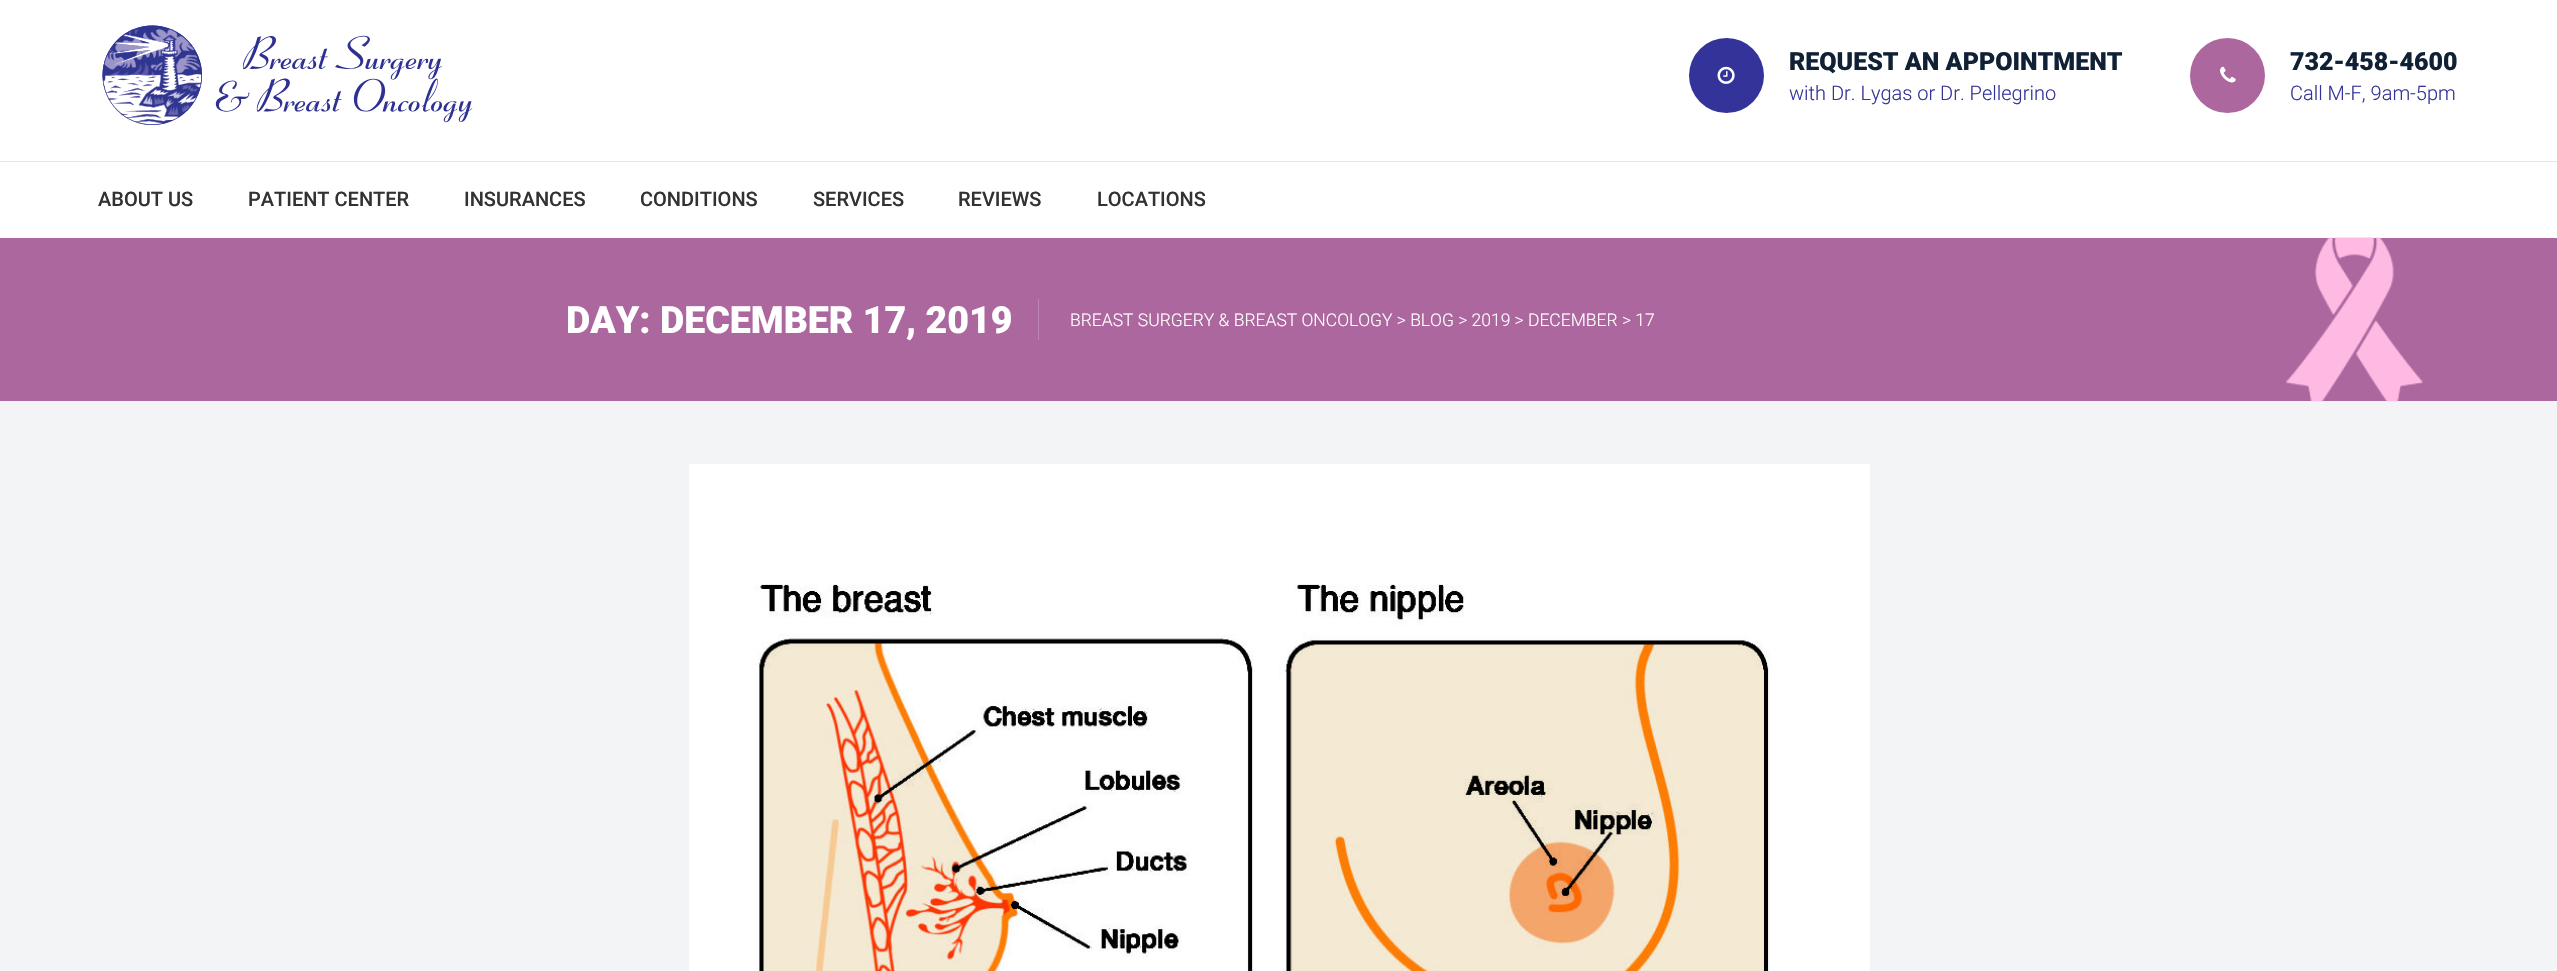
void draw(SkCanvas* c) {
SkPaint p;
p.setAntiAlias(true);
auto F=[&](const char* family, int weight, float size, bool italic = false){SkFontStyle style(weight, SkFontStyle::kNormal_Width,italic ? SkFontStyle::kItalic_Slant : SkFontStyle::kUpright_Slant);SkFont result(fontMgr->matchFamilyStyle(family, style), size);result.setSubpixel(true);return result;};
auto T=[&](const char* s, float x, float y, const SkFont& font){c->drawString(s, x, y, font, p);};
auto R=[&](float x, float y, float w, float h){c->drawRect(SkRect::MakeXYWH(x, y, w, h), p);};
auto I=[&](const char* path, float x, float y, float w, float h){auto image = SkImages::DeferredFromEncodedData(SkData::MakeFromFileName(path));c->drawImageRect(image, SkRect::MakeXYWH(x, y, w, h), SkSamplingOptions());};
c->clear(0xffffffff);
I("1.png",102,25,371,100);
p.setColor(0xff333399);
c->drawCircle(1726.5,75.5,37.5,p);
I("2.png",1717,66,18,18);
auto f1 = F("Roboto",900,25);
p.setColor(0xff102035);
T("REQUEST AN APPOINTMENT",1789,70,f1);
auto f2 = F("Roboto",300,20);
p.setColor(0xff333399);
T("with Dr. Lygas or Dr. Pellegrino",1789,100,f2);
p.setColor(0xffad679f);
c->drawCircle(2227.5,75.5,37.5,p);
I("3.png",2220,66,16,17);
p.setColor(0xff102035);
T("732-458-4600",2290,70,f1);
p.setColor(0xff333399);
T("Call M-F, 9am-5pm",2290,100,f2);
p.setColor(0xffe6e6e6);
R(0,161,2557,1);
auto f3 = F("Roboto",500,20);
p.setColor(0xff323232);
T("ABOUT US",98,206,f3);
T("PATIENT CENTER",248,206,f3);
T("INSURANCES",464,206,f3);
T("CONDITIONS",640,206,f3);
T("SERVICES",813,206,f3);
T("REVIEWS",958,206,f3);
T("LOCATIONS",1097,206,f3);
p.setColor(0xffad679f);
R(0,238,2557,163);
p.setColor(0xfff3f4f5);
R(0,401,2557,570);
I("4.png",2286,237,137,165);
auto f4 = F("Roboto",900,37.5);
p.setColor(0xffffffff);
T("DAY: DECEMBER 17, 2019",566,333,f4);
p.setColor(0xffbd85b2);
R(1038,299,1,41);
auto f5 = F("Roboto",300,17.5);
p.setColor(0xffffffff);
T("BREAST SURGERY & BREAST ONCOLOGY > BLOG > 2019 > DECEMBER > 17",1070,326,f5);
R(689,464,1181,507);
I("5.png",754,584,1017,387);
}
